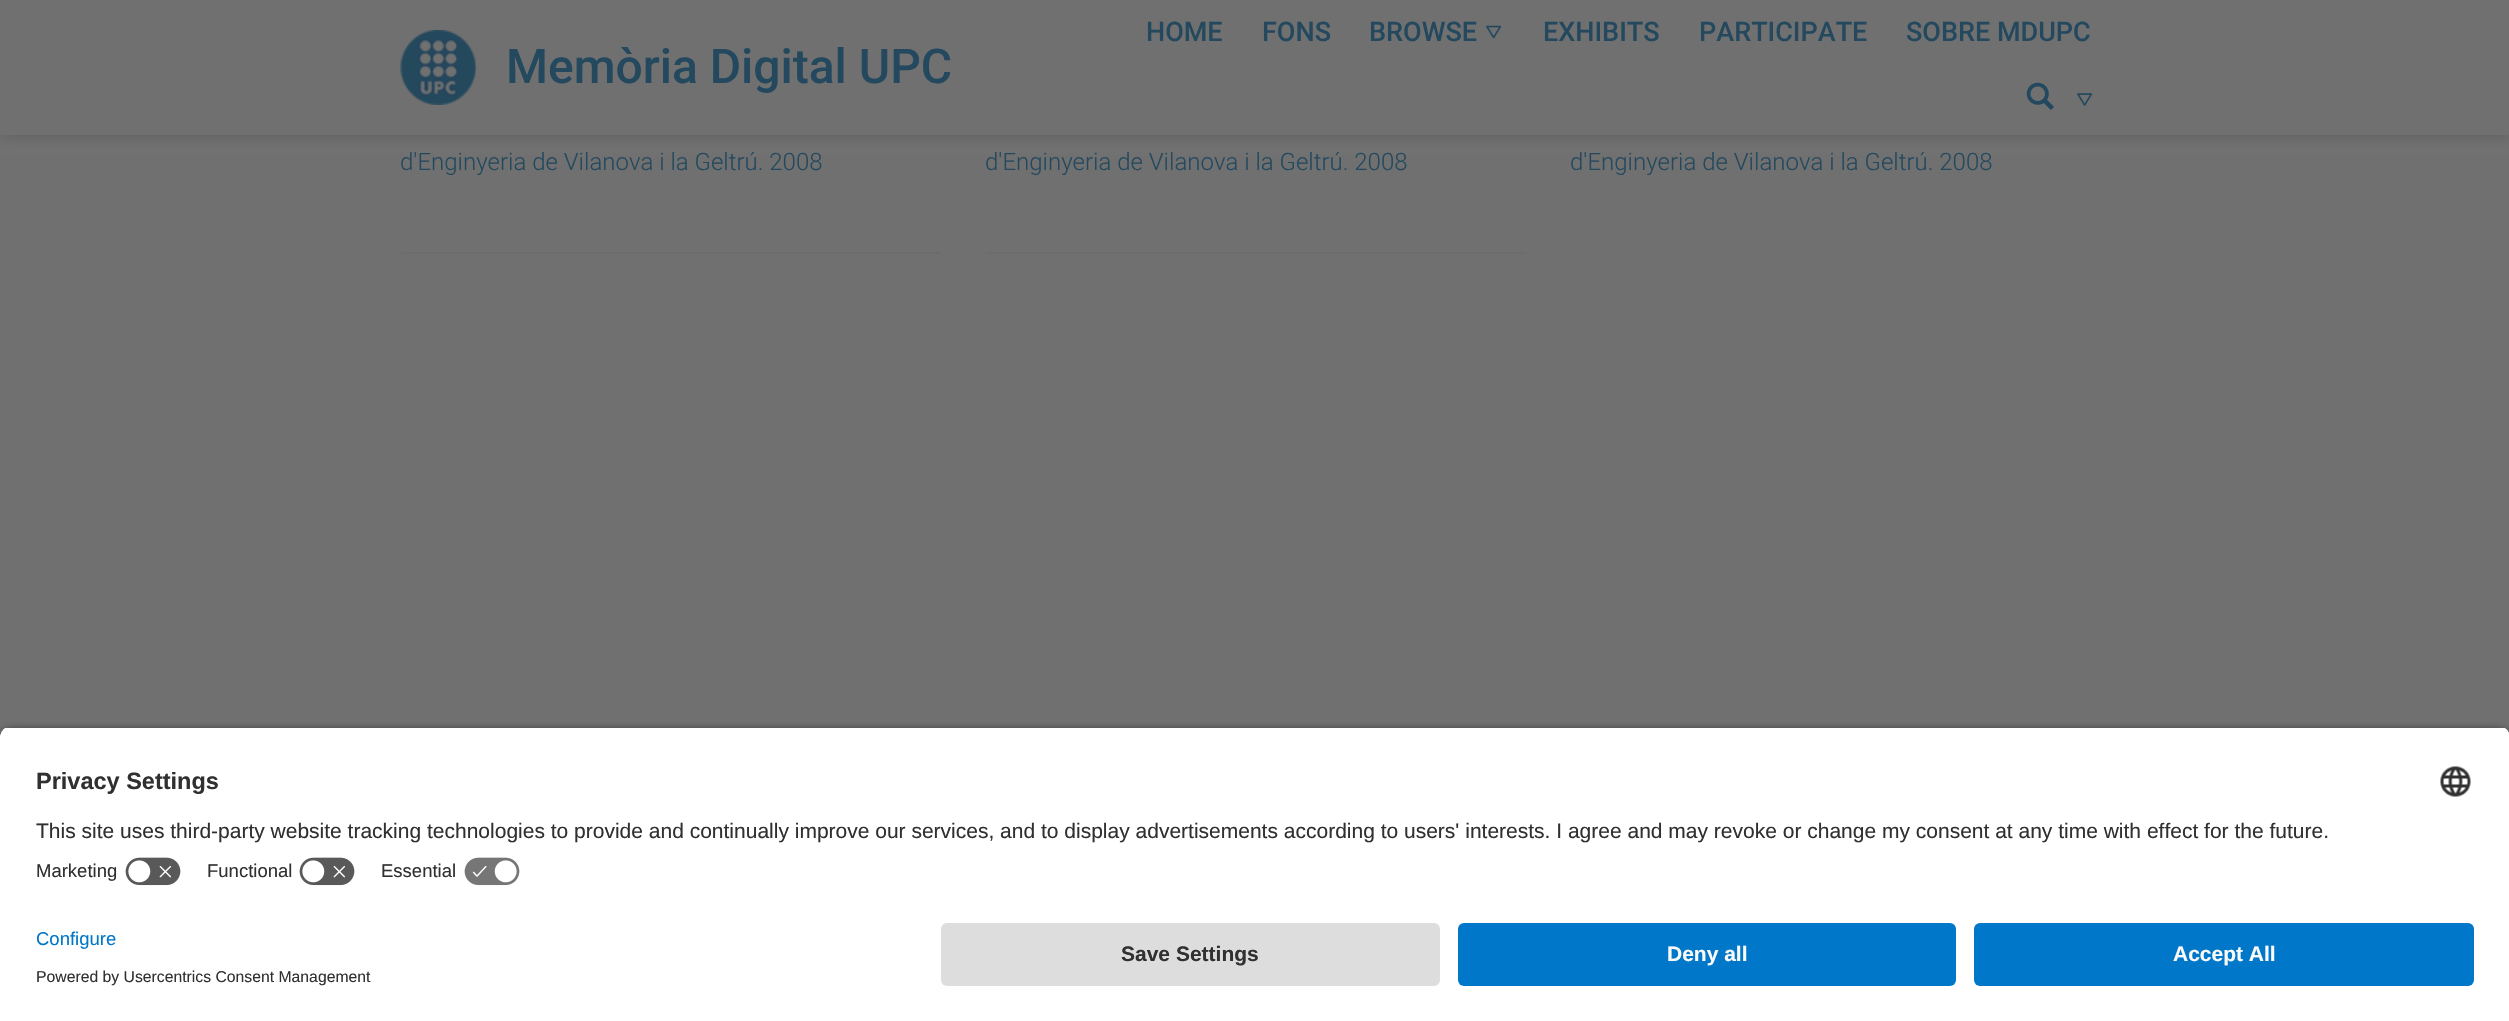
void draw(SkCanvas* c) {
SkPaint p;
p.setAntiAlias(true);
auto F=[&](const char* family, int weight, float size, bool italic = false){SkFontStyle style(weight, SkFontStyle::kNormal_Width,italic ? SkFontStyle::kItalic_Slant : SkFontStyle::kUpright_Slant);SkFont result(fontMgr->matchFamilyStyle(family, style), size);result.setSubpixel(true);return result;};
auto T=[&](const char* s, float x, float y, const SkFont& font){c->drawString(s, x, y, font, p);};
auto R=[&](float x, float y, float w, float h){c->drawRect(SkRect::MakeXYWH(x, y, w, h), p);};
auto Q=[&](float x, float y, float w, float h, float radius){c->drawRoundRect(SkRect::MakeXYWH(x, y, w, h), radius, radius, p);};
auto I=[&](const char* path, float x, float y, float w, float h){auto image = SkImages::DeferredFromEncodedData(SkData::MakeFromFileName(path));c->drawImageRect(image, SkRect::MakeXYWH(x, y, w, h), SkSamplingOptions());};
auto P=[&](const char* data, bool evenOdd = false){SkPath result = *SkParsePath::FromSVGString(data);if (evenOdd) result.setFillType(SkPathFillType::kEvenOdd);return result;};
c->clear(0xff707070);
p.setColor(0x33242424);
p.setMaskFilter(SkMaskFilter::MakeBlur(kNormal_SkBlurStyle, 6));
c->drawRect(SkRect::MakeXYWH(2,2,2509,135),p);
p.setMaskFilter(nullptr);
p.setColor(0xff707070);
R(0,0,2509,135);
auto f1 = F("Roboto",500,27);
p.setColor(0xff24495e);
T("HOME",1146,41,f1);
T("FONS",1262,41,f1);
T("BROWSE",1369,41,f1);
I("1.png",1486,25,16,14);
T("EXHIBITS",1543,41,f1);
T("PARTICIPATE",1699,41,f1);
T("SOBRE MDUPC",1906,41,f1);
I("2.png",2026,82,28,28);
I("3.png",2077,93,16,13);
I("4.png",400,30,77,75);
auto f2 = F("Roboto",500,48);
T("Memòria Digital UPC",506,83,f2);
auto f3 = F("Roboto",300,24);
T("d'Enginyeria de Vilanova i la Geltrú. 2008",400,170,f3);
T("d'Enginyeria de Vilanova i la Geltrú. 2008",985,170,f3);
T("d'Enginyeria de Vilanova i la Geltrú. 2008",1570,170,f3);
p.setColor(0xff6c6c6c);
R(401,252,540,2);
R(986,252,540,2);
p.setColor(0xcc000000);
p.setMaskFilter(SkMaskFilter::MakeBlur(kNormal_SkBlurStyle, 5));
c->drawRoundRect(SkRect::MakeXYWH(0,731,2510,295),12,12,p);
p.setMaskFilter(nullptr);
c->save();
c->clipPath(P("M12 726h2486c6.5 0 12 5.5 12 12v173h-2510v-173c0-6.5 5.5-12 12-12z"),true);
p.setColor(0xffffffff);
R(0,728,2509,183);
R(0,728,2509,123);
c->restore();
auto f4 = F("Liberation Sans",700,23.5);
p.setColor(0xff303030);
T("Privacy Settings",36,789,f4);
I("5.png",2440,766,31,31);
auto f5 = F("Liberation Sans",400,21);
T("This site uses third-party website tracking technologies to provide and continually improve our services, and to display advertisements according to users' interests. I agree and may revoke or change my consent at any time with effect for the future.",36,838,f5);
auto f6 = F("Liberation Sans",400,18.5);
T("Marketing",36,877,f6);
I("6.png",125,857,56,29);
T("Functional",207,877,f6);
I("6.png",299,857,56,29);
T("Essential",381,877,f6);
I("7.png",464,857,56,29);
p.setColor(0xffffffff);
R(0,911,2509,110);
p.setColor(0xff0077c8);
T("Configure",36,945,f6);
auto f7 = F("Liberation Sans",400,15.75);
p.setColor(0xff303030);
T("Powered by Usercentrics Consent Management",36,982,f7);
p.setColor(0xffdddddd);
Q(941,923,499,63,6);
auto f8 = F("Liberation Sans",700,21);
p.setColor(0xff303030);
T("Save Settings",1121,961,f8);
p.setColor(0xff0077c8);
Q(1458,923,498,63,6);
p.setColor(0xfffafafa);
T("Deny all",1667,961,f8);
p.setColor(0xff0077c8);
Q(1974,923,500,63,6);
p.setColor(0xfffafafa);
T("Accept All",2173,961,f8);
}
